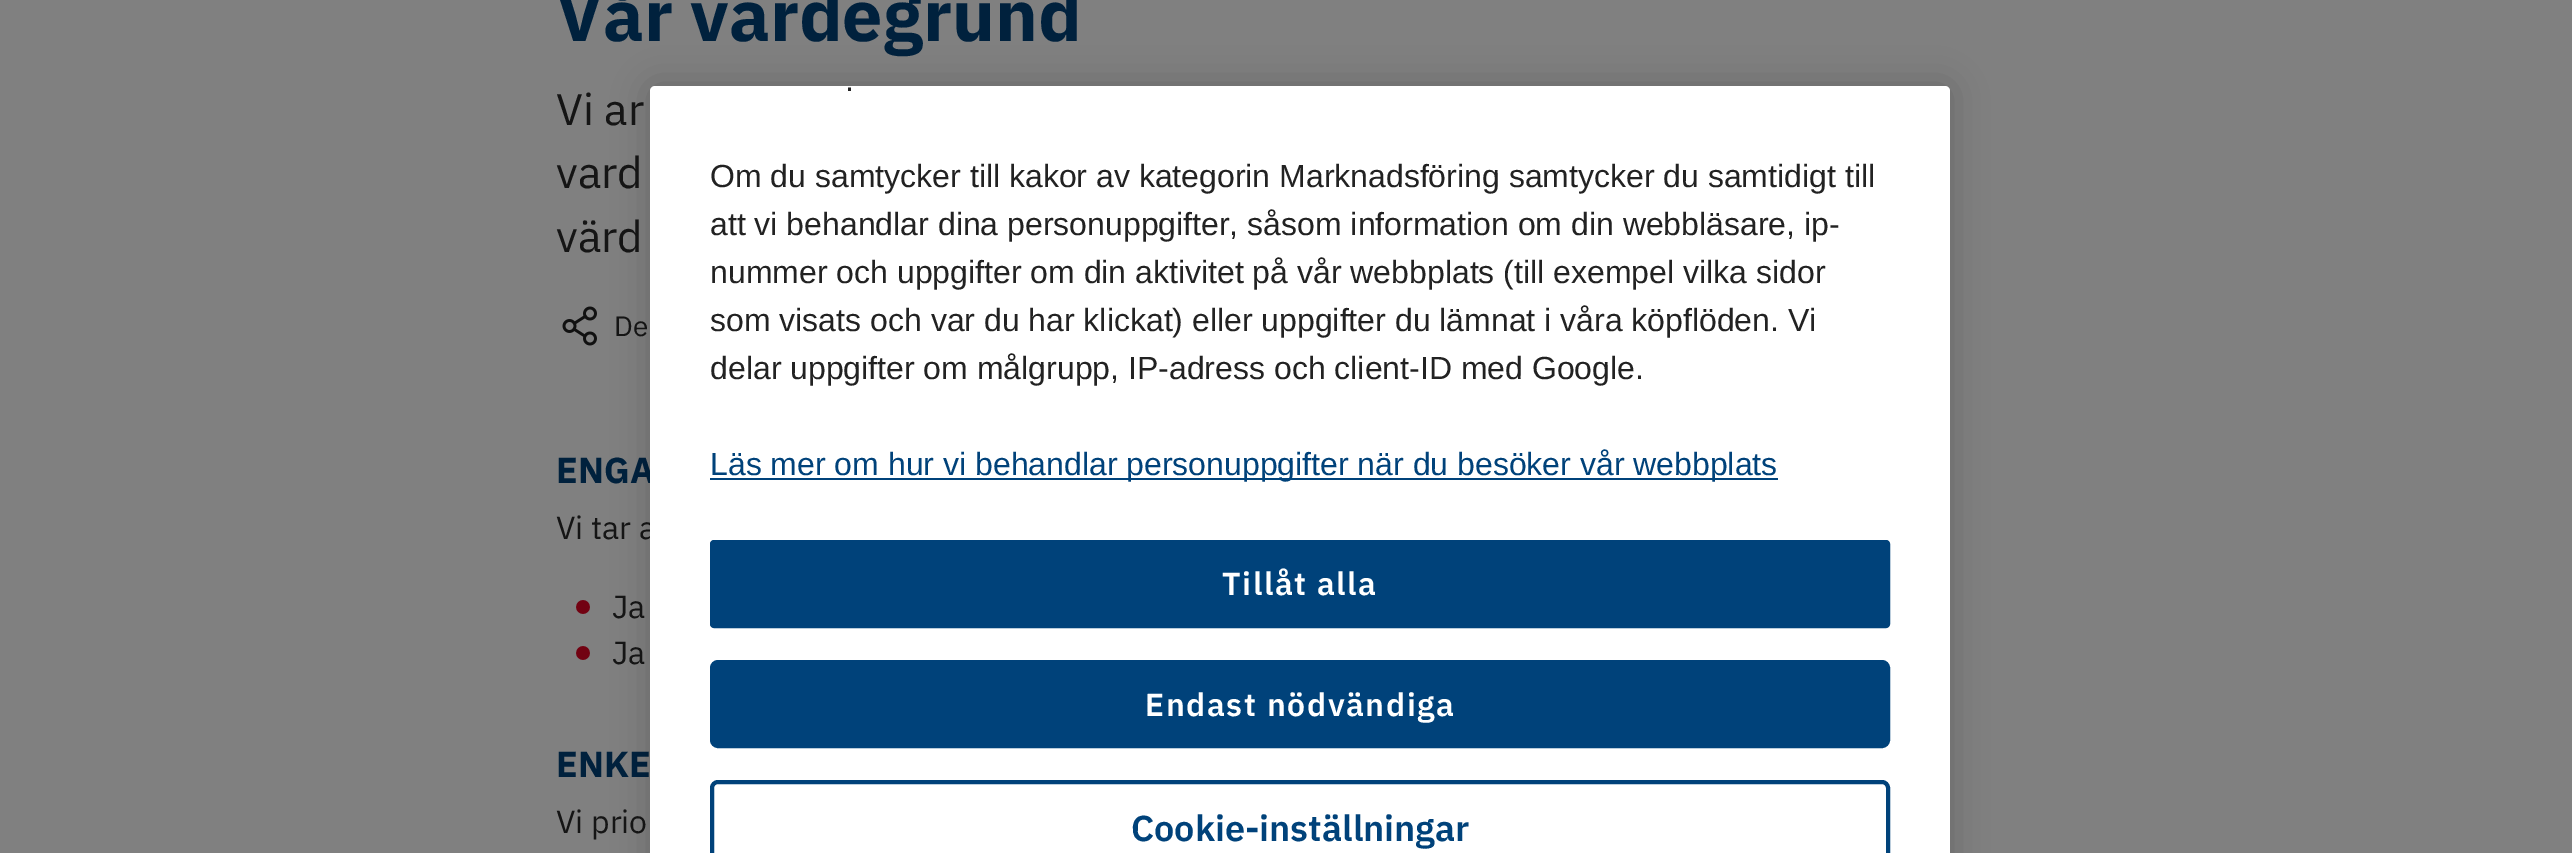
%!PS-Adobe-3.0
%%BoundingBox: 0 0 2572 853
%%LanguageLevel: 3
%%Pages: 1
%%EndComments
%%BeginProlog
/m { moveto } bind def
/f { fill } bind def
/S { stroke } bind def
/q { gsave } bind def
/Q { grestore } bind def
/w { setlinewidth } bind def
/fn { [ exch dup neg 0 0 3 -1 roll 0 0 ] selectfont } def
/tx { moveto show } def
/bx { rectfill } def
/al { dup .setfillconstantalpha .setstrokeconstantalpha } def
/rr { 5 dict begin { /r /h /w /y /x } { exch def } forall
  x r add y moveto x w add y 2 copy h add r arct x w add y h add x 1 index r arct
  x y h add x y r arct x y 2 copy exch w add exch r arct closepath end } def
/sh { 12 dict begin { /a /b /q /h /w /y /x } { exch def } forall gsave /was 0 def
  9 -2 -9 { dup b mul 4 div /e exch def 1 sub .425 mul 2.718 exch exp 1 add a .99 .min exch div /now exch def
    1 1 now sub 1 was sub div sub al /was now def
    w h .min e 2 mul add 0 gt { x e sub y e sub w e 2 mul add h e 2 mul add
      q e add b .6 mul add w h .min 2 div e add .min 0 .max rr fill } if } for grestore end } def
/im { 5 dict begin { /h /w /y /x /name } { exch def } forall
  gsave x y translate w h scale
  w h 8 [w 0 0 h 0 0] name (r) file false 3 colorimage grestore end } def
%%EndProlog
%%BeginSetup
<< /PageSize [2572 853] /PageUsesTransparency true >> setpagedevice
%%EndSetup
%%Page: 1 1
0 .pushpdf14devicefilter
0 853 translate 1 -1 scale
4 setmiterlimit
0.502 setgray
0 0 2572 853 bx
/IBMPlexSans-Bold 72 fn
0 0.129 0.239 setrgbcolor
(Vår värdegrund) 556 41 tx
/IBMPlexSans-Regular 44 fn
0.082 setgray
(Vi ar) 556 125 tx
(vard) 556 188 tx
(värd) 556 252 tx
(image0.raw) 562 306 35 40 im
/IBMPlexSans-Regular 28 fn
(De) 614 336 tx
/IBMPlexSans-Bold 36 fn
0 0.129 0.239 setrgbcolor
(ENGA) 556 483 tx
/IBMPlexSans-Regular 32 fn
0.082 setgray
(Vi tar a) 556 539 tx
(image1.raw) 576 600 14 14 im
(Ja) 612 618 tx
(image1.raw) 576 646 14 14 im
(Ja) 612 664 tx
/IBMPlexSans-Bold 36 fn
0 0.129 0.239 setrgbcolor
(ENKE) 556 777 tx
/IBMPlexSans-Regular 32 fn
0.082 setgray
(Vi prio) 556 833 tx
0 setgray
650 86 1300 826 5 18 0.2 sh
1 setgray
650 86 1300 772 5 rr f
/LiberationSans-Regular 32 fn
0.133 setgray
(.) 845 91 tx
(Om du samtycker till kakor av kategorin Marknadsföring samtycker du samtidigt till) 710 187 tx
(att vi behandlar dina personuppgifter, såsom information om din webbläsare, ip-) 710 235 tx
(nummer och uppgifter om din aktivitet på vår webbplats \(till exempel vilka sidor) 710 283 tx
(som visats och var du har klickat\) eller uppgifter du lämnat i våra köpflöden. Vi) 710 331 tx
(delar uppgifter om målgrupp, IP-adress och client-ID med Google.) 710 379 tx
0 0.259 0.478 setrgbcolor
710 478 1068 2 bx
(Läs mer om hur vi behandlar personuppgifter när du besöker vår webbplats) 710 475 tx
711 541 1178 86 3 rr q f Q
2 w
S
/IBMPlexSans-SemiBold 32 fn
1 setgray
1222 595 m 1.6 0 (Tillåt alla) ashow
0 0.259 0.478 setrgbcolor
711 661 1178 86 7 rr q f Q
S
1 setgray
1145 716 m 1.6 0 (Endast nödvändiga) ashow
0 0.259 0.478 setrgbcolor
4 w
712 782 1176 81 6 rr S
/IBMPlexSans-SemiBold 36 fn
(Cookie-inställningar) 1131 841 tx
.poppdf14devicefilter showpage
%%EOF
